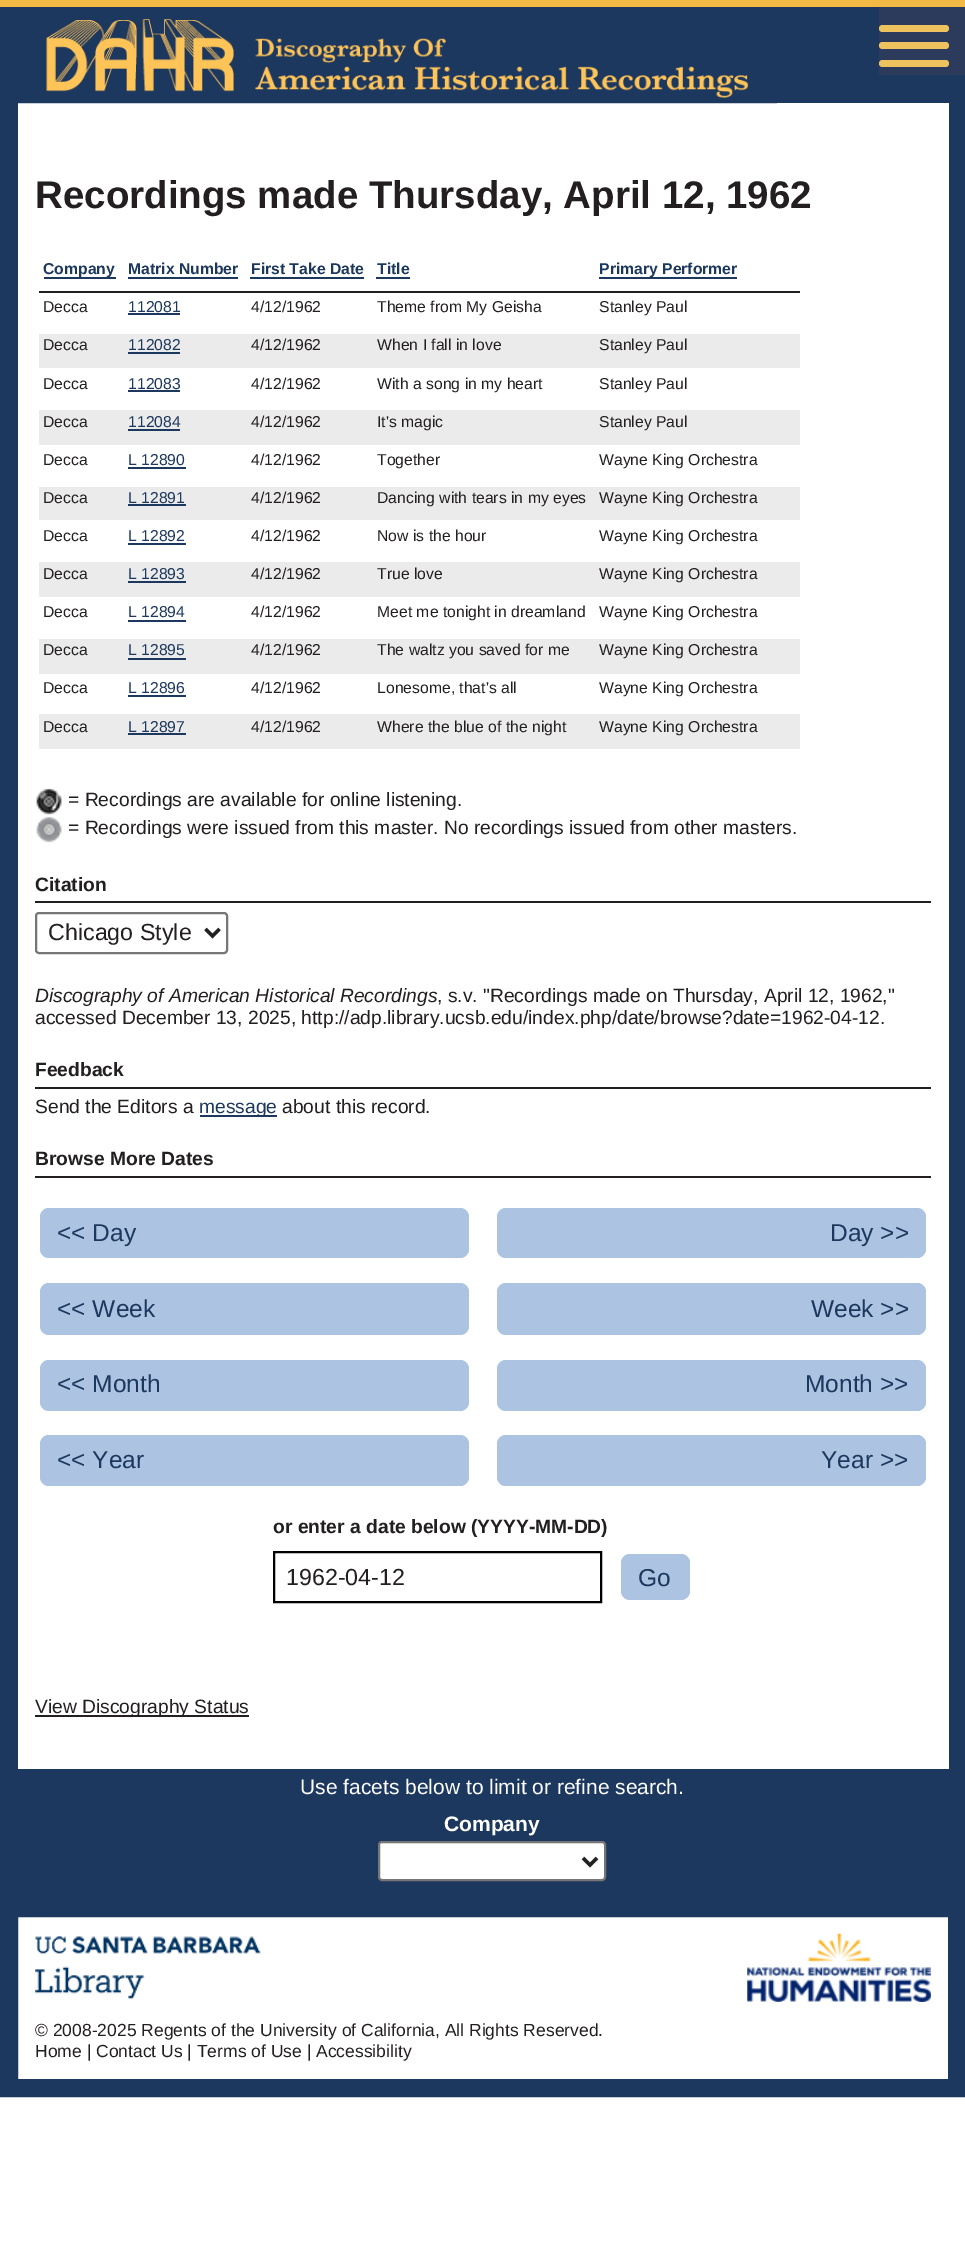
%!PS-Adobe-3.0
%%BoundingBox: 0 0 965 2262
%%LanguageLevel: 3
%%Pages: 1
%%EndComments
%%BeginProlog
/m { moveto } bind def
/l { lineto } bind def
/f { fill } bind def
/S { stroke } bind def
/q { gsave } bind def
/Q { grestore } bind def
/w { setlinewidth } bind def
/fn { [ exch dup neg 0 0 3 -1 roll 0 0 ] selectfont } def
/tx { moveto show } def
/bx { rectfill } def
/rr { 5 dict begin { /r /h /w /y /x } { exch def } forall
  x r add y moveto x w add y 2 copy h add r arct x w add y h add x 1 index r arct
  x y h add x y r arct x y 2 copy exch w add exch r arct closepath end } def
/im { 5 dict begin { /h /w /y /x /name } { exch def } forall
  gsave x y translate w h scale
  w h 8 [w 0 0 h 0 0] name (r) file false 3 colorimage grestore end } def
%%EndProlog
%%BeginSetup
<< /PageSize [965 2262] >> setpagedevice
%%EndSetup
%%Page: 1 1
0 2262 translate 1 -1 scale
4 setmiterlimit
1 setgray
0 0 965 2262 bx
0.114 0.22 0.369 setrgbcolor
0 7 965 1892 bx
0.953 0.725 0.271 setrgbcolor
0 0 965 7 bx
1 setgray
18 103 931 1666 bx
(image0.raw) 18 19 759 85 im
0.173 0.231 0.361 setrgbcolor
879 7 86 68 bx
0.933 0.765 0.365 setrgbcolor
879 42 70 7 3.5 rr f
879 25 70 7 3.5 rr f
879 60 70 7 3.5 rr f
/LiberationSans-Bold 38.5 fn
0.137 0.122 0.125 setrgbcolor
(Recordings made Thursday, April 12, 1962) 35 208 tx
39 291 761 2 bx
0.114 0.22 0.369 setrgbcolor
44 277 72 2 bx
/LiberationSans-Bold 15.75 fn
(Company) 43 274 tx
(Matrix Number) 128 274 tx
128 277 110 2 bx
(First Take Date) 251 274 tx
250 277 114 2 bx
(Title) 377 274 tx
376 277 34 2 bx
599 277 138 2 bx
(Primary Performer) 599 274 tx
/LiberationSans-Regular 15.75 fn
0.137 0.122 0.125 setrgbcolor
(Decca) 43 312 tx
0.114 0.22 0.369 setrgbcolor
(112081) 128 312 tx
128 313 52 2 bx
0.137 0.122 0.125 setrgbcolor
(4/12/1962) 251 312 tx
(Theme from My Geisha) 377 312 tx
(Stanley Paul) 599 312 tx
0.922 setgray
39 334 761 34 bx
0.137 0.122 0.125 setrgbcolor
(Decca) 43 350 tx
0.114 0.22 0.369 setrgbcolor
(112082) 128 350 tx
128 352 52 2 bx
0.137 0.122 0.125 setrgbcolor
(4/12/1962) 251 350 tx
(When I fall in love) 377 350 tx
(Stanley Paul) 599 350 tx
(Decca) 43 389 tx
0.114 0.22 0.369 setrgbcolor
(112083) 128 389 tx
128 390 52 2 bx
0.137 0.122 0.125 setrgbcolor
(4/12/1962) 251 389 tx
(With a song in my heart) 377 389 tx
(Stanley Paul) 599 389 tx
0.922 setgray
39 410 761 35 bx
0.137 0.122 0.125 setrgbcolor
(Decca) 43 427 tx
0.114 0.22 0.369 setrgbcolor
(112084) 128 427 tx
128 429 52 2 bx
0.137 0.122 0.125 setrgbcolor
(4/12/1962) 251 427 tx
(It's magic) 377 427 tx
(Stanley Paul) 599 427 tx
(Decca) 43 465 tx
0.114 0.22 0.369 setrgbcolor
(L 12890) 128 465 tx
128 467 58 2 bx
0.137 0.122 0.125 setrgbcolor
(4/12/1962) 251 465 tx
(Together) 377 465 tx
(Wayne King Orchestra) 599 465 tx
0.922 setgray
39 487 761 33 bx
0.137 0.122 0.125 setrgbcolor
(Decca) 43 503 tx
0.114 0.22 0.369 setrgbcolor
(L 12891) 128 503 tx
128 504 58 2 bx
0.137 0.122 0.125 setrgbcolor
(4/12/1962) 251 503 tx
(Dancing with tears in my eyes) 377 503 tx
(Wayne King Orchestra) 599 503 tx
(Decca) 43 541 tx
0.114 0.22 0.369 setrgbcolor
(L 12892) 128 541 tx
128 543 58 2 bx
0.137 0.122 0.125 setrgbcolor
(4/12/1962) 251 541 tx
(Now is the hour) 377 541 tx
(Wayne King Orchestra) 599 541 tx
0.922 setgray
39 562 761 35 bx
0.137 0.122 0.125 setrgbcolor
(Decca) 43 579 tx
0.114 0.22 0.369 setrgbcolor
(L 12893) 128 579 tx
128 581 58 2 bx
0.137 0.122 0.125 setrgbcolor
(4/12/1962) 251 579 tx
(True love) 377 579 tx
(Wayne King Orchestra) 599 579 tx
(Decca) 43 617 tx
0.114 0.22 0.369 setrgbcolor
(L 12894) 128 617 tx
128 620 58 2 bx
0.137 0.122 0.125 setrgbcolor
(4/12/1962) 251 617 tx
(Meet me tonight in dreamland) 377 617 tx
(Wayne King Orchestra) 599 617 tx
0.922 setgray
39 639 761 35 bx
0.137 0.122 0.125 setrgbcolor
(Decca) 43 655 tx
0.114 0.22 0.369 setrgbcolor
(L 12895) 128 655 tx
128 658 58 2 bx
0.137 0.122 0.125 setrgbcolor
(4/12/1962) 251 655 tx
(The waltz you saved for me) 377 655 tx
(Wayne King Orchestra) 599 655 tx
(Decca) 43 693 tx
0.114 0.22 0.369 setrgbcolor
(L 12896) 128 693 tx
128 695 58 2 bx
0.137 0.122 0.125 setrgbcolor
(4/12/1962) 251 693 tx
(Lonesome, that's all) 377 693 tx
(Wayne King Orchestra) 599 693 tx
0.922 setgray
39 714 761 35 bx
0.137 0.122 0.125 setrgbcolor
(Decca) 43 732 tx
0.114 0.22 0.369 setrgbcolor
(L 12897) 128 732 tx
128 733 58 2 bx
0.137 0.122 0.125 setrgbcolor
(4/12/1962) 251 732 tx
(Where the blue of the night) 377 732 tx
(Wayne King Orchestra) 599 732 tx
(image1.raw) 36 788 26 27 im
/LiberationSans-Regular 19.25 fn
(= Recordings are available for online listening.) 68 806 tx
(image2.raw) 36 816 26 27 im
(= Recordings were issued from this master. No recordings issued from other masters.) 68 834 tx
35 901 896 2 bx
/LiberationSans-Bold 19.25 fn
(Citation) 35 891 tx
0.463 setgray
2 w
36 913 191 40 3 rr S
0.133 setgray
3.5 w
205.5 929 m 212.5 936 l 219.5 929 l S
/LiberationSans-Regular 23.25 fn
0.137 0.122 0.125 setrgbcolor
(Chicago Style) 48 940 tx
/LiberationSans-Italic 19.25 fn
(Discography of American Historical Recordings) 35 1002 tx
/LiberationSans-Regular 19.25 fn
(, s.v. "Recordings made on Thursday, April 12, 1962,") 437 1002 tx
(accessed December 13, 2025, http://adp.library.ucsb.edu/index.php/date/browse?date=1962-04-12.) 35 1024 tx
35 1087 896 2 bx
/LiberationSans-Bold 19.25 fn
(Feedback) 35 1076 tx
/LiberationSans-Regular 19.25 fn
(Send the Editors a) 35 1113 tx
0.114 0.22 0.369 setrgbcolor
200 1115 77 2 bx
(message) 199 1113 tx
0.137 0.122 0.125 setrgbcolor
(about this record.) 282 1113 tx
35 1176 896 2 bx
/LiberationSans-Bold 19.25 fn
(Browse More Dates) 35 1165 tx
0.675 0.765 0.882 setrgbcolor
40 1208 429 50 9 rr f
/LiberationSans-Regular 24.5 fn
0.114 0.22 0.369 setrgbcolor
(<< Day) 57 1241 tx
0.675 0.765 0.882 setrgbcolor
40 1283 429 52 9 rr f
0.114 0.22 0.369 setrgbcolor
(<< Week) 57 1317 tx
0.675 0.765 0.882 setrgbcolor
40 1360 429 51 9 rr f
0.114 0.22 0.369 setrgbcolor
(<< Month) 57 1392 tx
0.675 0.765 0.882 setrgbcolor
40 1435 429 51 9 rr f
0.114 0.22 0.369 setrgbcolor
(<< Year) 57 1468 tx
0.675 0.765 0.882 setrgbcolor
497 1208 429 50 9 rr f
0.114 0.22 0.369 setrgbcolor
(Day >>) 830 1241 tx
0.675 0.765 0.882 setrgbcolor
497 1283 429 52 9 rr f
0.114 0.22 0.369 setrgbcolor
(Week >>) 811 1317 tx
0.675 0.765 0.882 setrgbcolor
497 1360 429 51 9 rr f
0.114 0.22 0.369 setrgbcolor
(Month >>) 805 1392 tx
0.675 0.765 0.882 setrgbcolor
497 1435 429 51 9 rr f
0.114 0.22 0.369 setrgbcolor
(Year >>) 821 1468 tx
/LiberationSans-Bold 19.25 fn
0.137 0.122 0.125 setrgbcolor
(or enter a date below \(YYYY-MM-DD\)) 273 1533 tx
0 setgray
2 w
274 1552 327 50 rectstroke
/LiberationSans-Regular 23.25 fn
0.137 0.122 0.125 setrgbcolor
(1962-04-12) 286 1585 tx
0.675 0.765 0.882 setrgbcolor
621 1554 69 46 9 rr f
/LiberationSans-Regular 24.5 fn
0.114 0.22 0.369 setrgbcolor
(Go) 638 1586 tx
0.137 0.122 0.125 setrgbcolor
35 1715 214 2 bx
/LiberationSans-Regular 19.25 fn
(View Discography Status) 35 1713 tx
/LiberationSans-Regular 21 fn
1 setgray
(Use facets below to limit or refine search.) 300 1794 tx
/LiberationSans-Bold 21 fn
(Company) 444 1831 tx
379 1842 226 38 3 rr q f Q
0.463 setgray
S
0.133 setgray
3.5 w
583 1858 m 590 1865 l 597 1858 l S
0.114 0.22 0.369 setrgbcolor
18 w
9 1908 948 180 rectstroke
(image3.raw) 35 1936 226 63 im
(image4.raw) 747 1933 184 69 im
/LiberationSans-Regular 17.5 fn
0.137 0.122 0.125 setrgbcolor
(© 2008-2025 Regents of the University of California, All Rights Reserved.) 35 2036 tx
(Home | Contact Us | Terms of Use | Accessibility) 35 2057 tx
showpage
%%EOF
